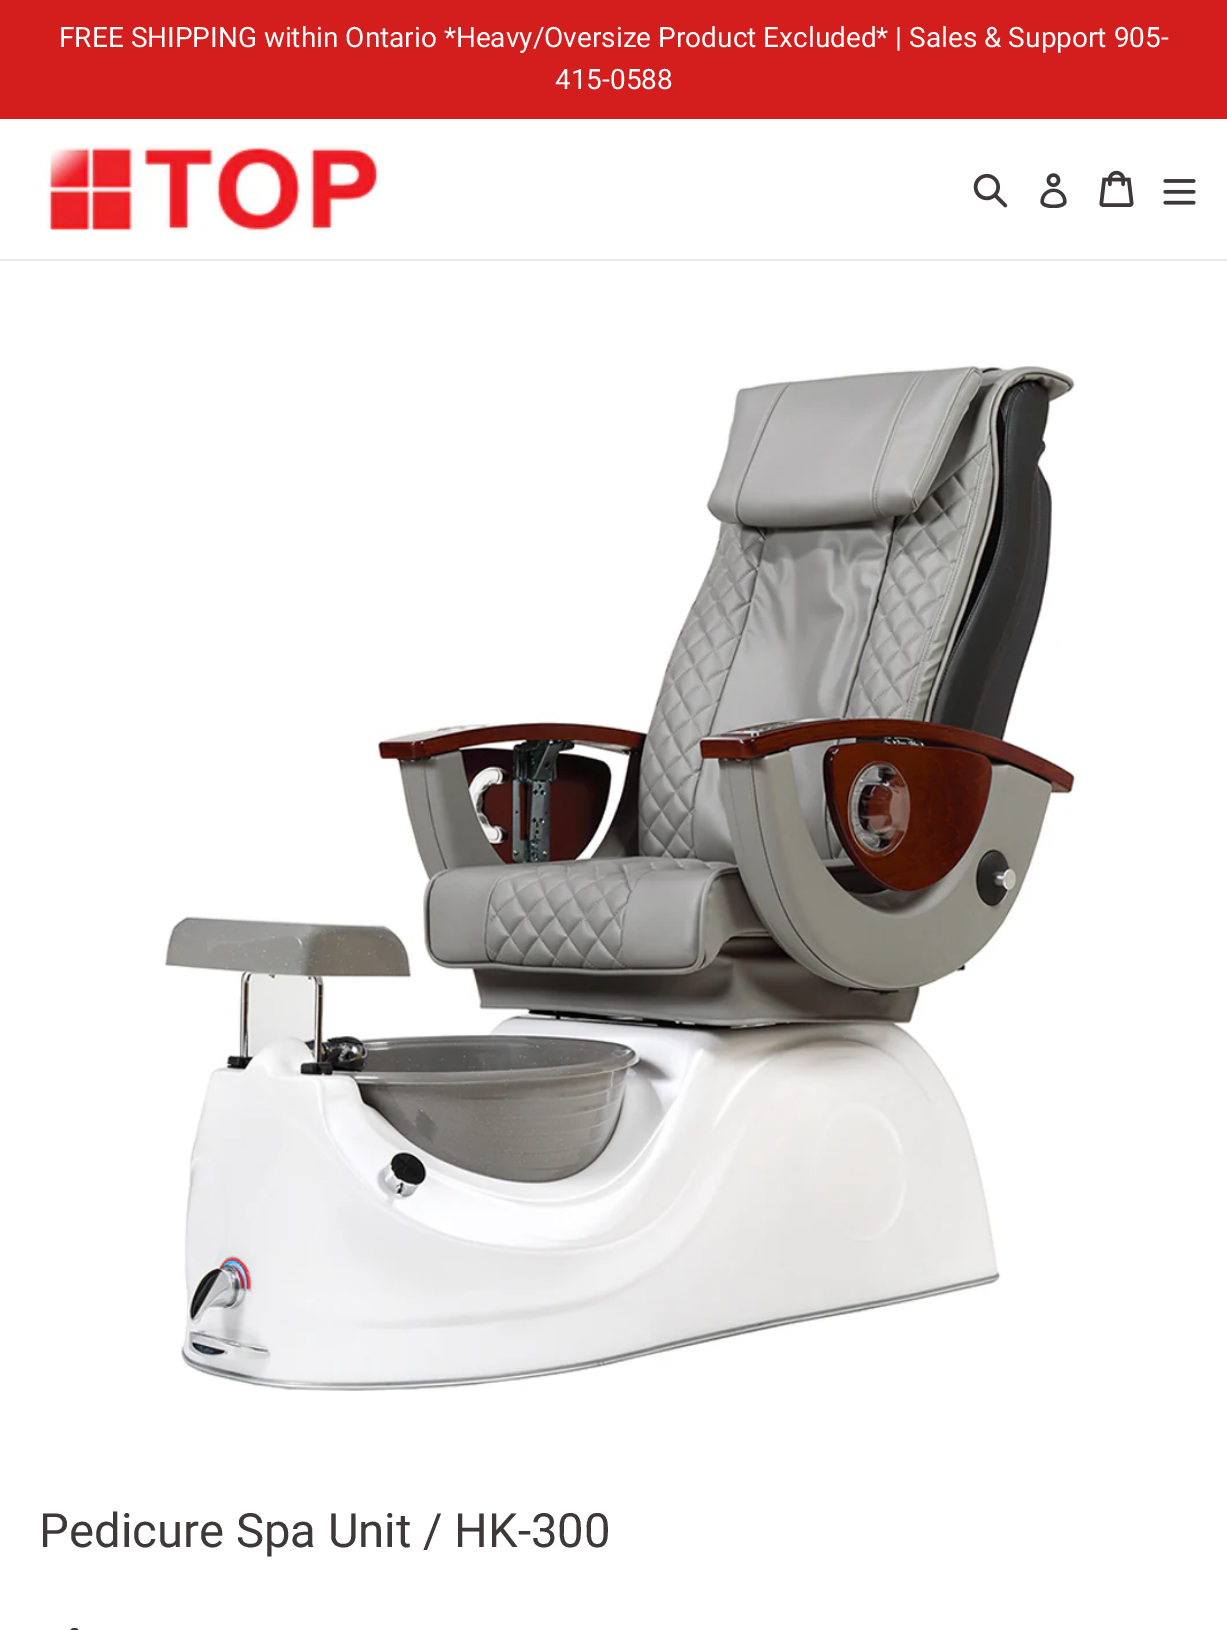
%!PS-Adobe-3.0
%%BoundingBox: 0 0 1227 1630
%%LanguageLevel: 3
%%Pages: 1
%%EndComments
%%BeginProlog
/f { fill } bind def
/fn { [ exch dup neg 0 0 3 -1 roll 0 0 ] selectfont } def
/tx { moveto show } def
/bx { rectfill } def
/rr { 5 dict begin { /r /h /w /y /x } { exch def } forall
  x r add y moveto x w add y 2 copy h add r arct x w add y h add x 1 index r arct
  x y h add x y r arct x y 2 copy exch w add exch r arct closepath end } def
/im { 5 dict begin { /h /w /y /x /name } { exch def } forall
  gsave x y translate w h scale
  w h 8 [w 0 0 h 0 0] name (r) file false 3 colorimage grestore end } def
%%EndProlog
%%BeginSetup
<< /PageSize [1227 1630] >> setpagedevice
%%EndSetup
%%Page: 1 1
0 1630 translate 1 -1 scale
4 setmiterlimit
1 setgray
0 0 1227 1630 bx
0.831 0.114 0.114 setrgbcolor
0 0 1227 119 bx
/Roboto-Regular 28 fn
1 setgray
(FREE SHIPPING within Ontario *Heavy/Oversize Product Excluded* | Sales & Support 905-) 59 47 tx
(415-0588) 555 89 tx
0.91 0.914 0.922 setrgbcolor
0 259 1227 2 bx
(image0.raw) 39 145 346 88 im
(image1.raw) 973 173 35 35 im
(image2.raw) 1040 173 27 35 im
(image3.raw) 1099 170 35 37 im
(image4.raw) 1163 179 33 26 im
(image5.raw) 163 364 913 1027 im
/Roboto-Regular 47.25 fn
0.243 0.22 0.22 setrgbcolor
(Pedicure Spa Unit / HK-300) 39 1547 tx
0.239 0.231 0.231 setrgbcolor
70 1628 9 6 4 rr f
showpage
%%EOF
